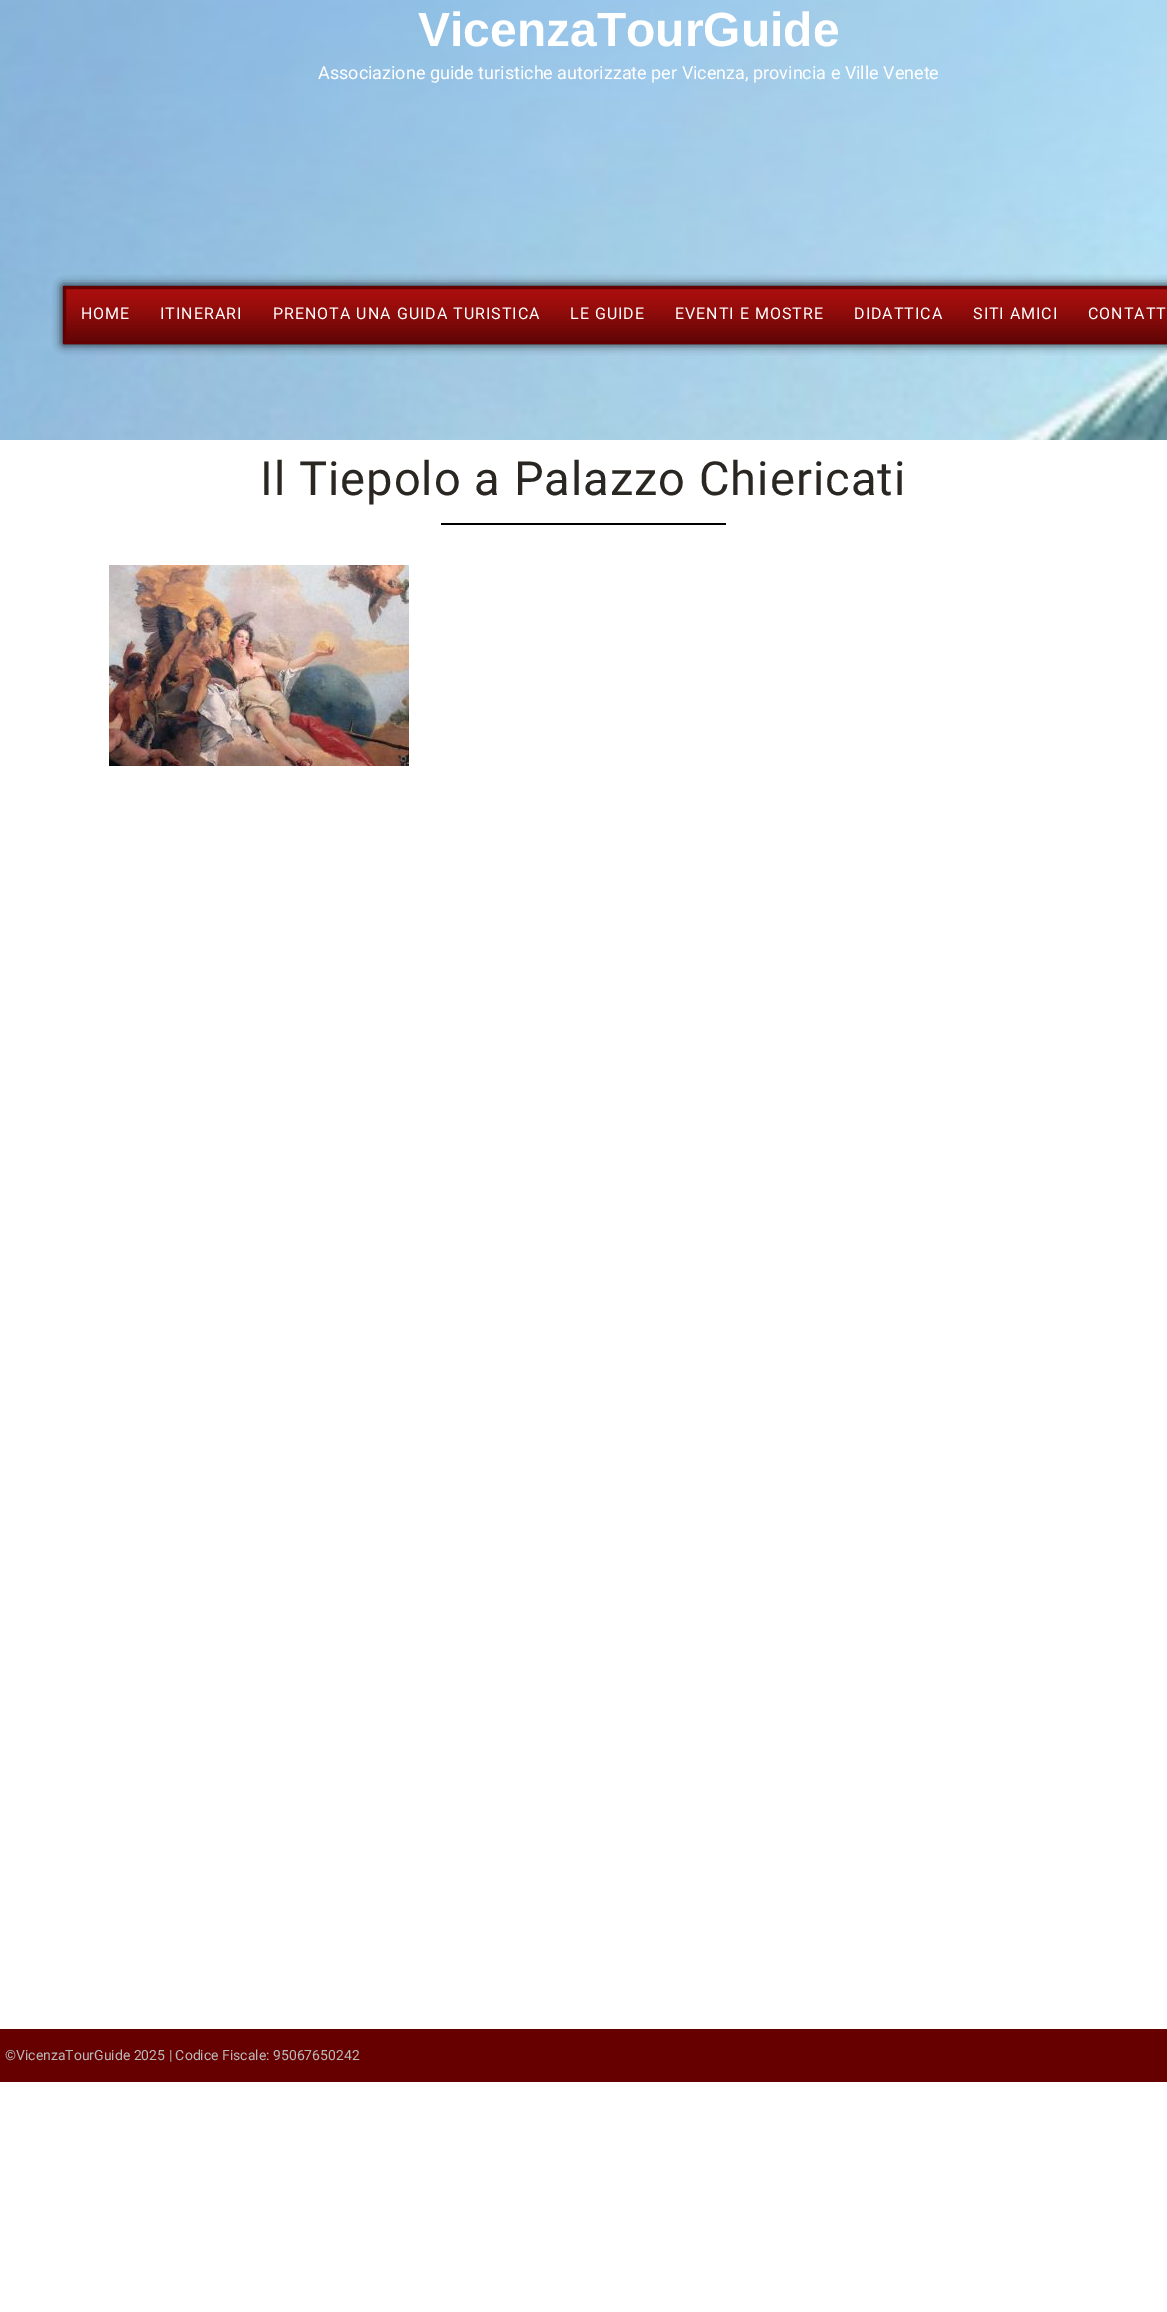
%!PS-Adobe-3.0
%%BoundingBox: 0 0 1167 2312
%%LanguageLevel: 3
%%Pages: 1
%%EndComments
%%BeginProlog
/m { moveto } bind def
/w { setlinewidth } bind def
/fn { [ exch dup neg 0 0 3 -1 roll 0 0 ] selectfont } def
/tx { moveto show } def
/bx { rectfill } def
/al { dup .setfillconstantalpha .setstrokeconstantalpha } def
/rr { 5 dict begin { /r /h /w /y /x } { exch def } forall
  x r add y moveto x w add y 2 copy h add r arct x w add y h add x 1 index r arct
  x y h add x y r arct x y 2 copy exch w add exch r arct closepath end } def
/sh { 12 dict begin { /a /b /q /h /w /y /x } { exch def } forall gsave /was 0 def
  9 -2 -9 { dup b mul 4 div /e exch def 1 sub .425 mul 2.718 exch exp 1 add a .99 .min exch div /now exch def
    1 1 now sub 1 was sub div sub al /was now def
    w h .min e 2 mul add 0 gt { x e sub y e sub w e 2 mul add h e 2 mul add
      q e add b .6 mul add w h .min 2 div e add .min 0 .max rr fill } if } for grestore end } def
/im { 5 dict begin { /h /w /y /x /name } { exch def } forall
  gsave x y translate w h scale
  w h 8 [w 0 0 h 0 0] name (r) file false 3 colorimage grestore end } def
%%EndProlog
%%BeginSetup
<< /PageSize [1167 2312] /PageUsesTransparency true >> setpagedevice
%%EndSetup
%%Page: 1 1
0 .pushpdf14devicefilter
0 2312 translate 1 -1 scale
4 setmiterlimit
1 setgray
0 0 1167 2312 bx
(image0.raw) 0 0 1167 440 im
/LiberationSans-Bold 48 fn
(VicenzaTourGuide) 418 46 tx
/Roboto-Regular 18 fn
(Associazione guide turistiche autorizzate per Vicenza, provincia e Ville Venete) 318 79 tx
0 setgray
63 286 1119 58 0 5 1 sh
(image1.raw) 66 289 1101 52 im
0.4 0 0 setrgbcolor
3 w
64.5 287.5 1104 55 rectstroke
/Roboto-Regular 16 fn
1 setgray
81 319 m 1 0 (HOME) ashow
160 319 m 1 0 (ITINERARI) ashow
273 319 m 1 0 (PRENOTA UNA GUIDA TURISTICA) ashow
570 319 m 1 0 (LE GUIDE) ashow
675 319 m 1 0 (EVENTI E MOSTRE) ashow
854 319 m 1 0 (DIDATTICA) ashow
973 319 m 1 0 (SITI AMICI) ashow
1088 319 m 1 0 (CONTATT) ashow
/Roboto-Regular 47 fn
0.165 0.149 0.133 setrgbcolor
260 495 m 1 0 (Il Tiepolo a Palazzo Chiericati) ashow
0 setgray
441 523 285 2 bx
(image2.raw) 109 565 300 201 im
0.4 0 0 setrgbcolor
0 2029 1167 53 bx
/Roboto-Regular 14 fn
0.725 setgray
(©VicenzaTourGuide 2025 | Codice Fiscale: 95067650242) 5 2060 tx
.poppdf14devicefilter showpage
%%EOF
